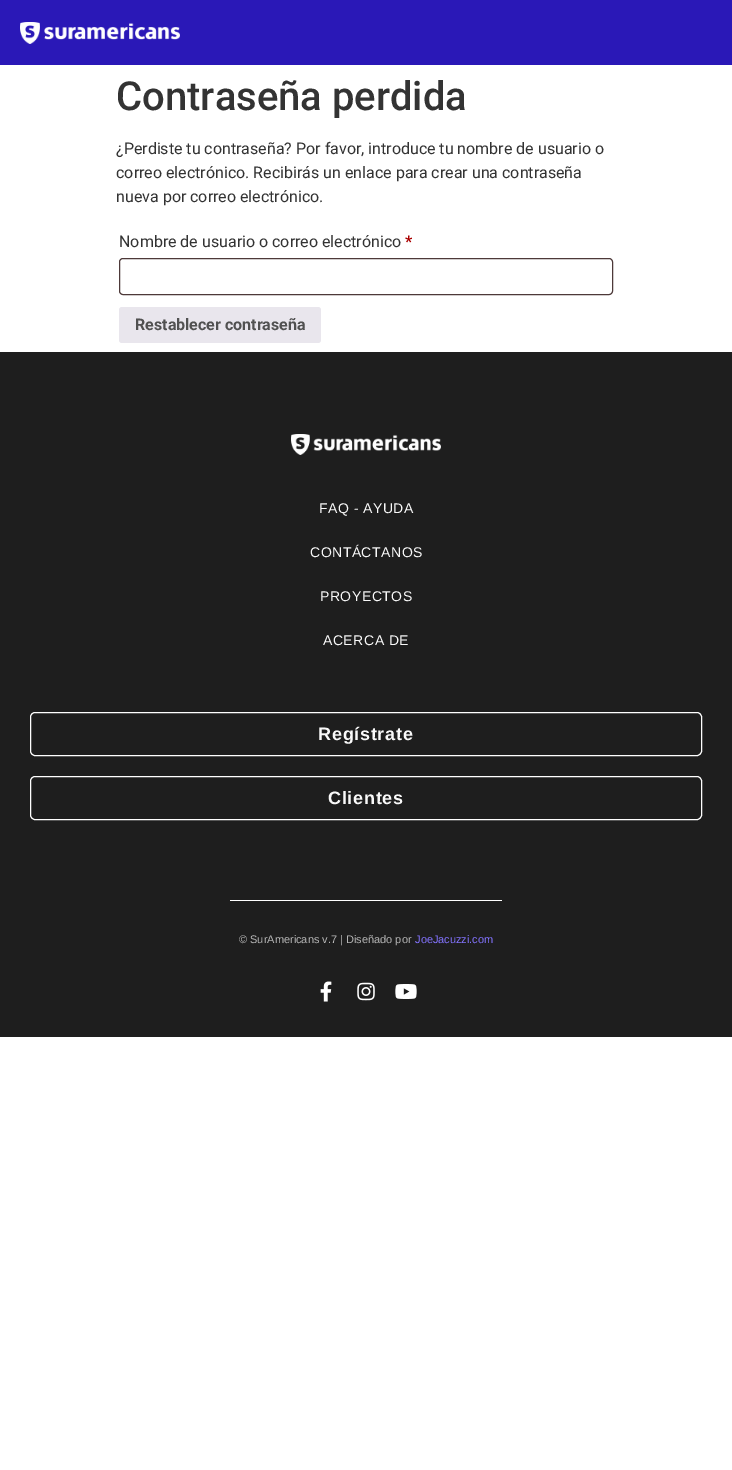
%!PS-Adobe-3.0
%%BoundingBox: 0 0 732 1470
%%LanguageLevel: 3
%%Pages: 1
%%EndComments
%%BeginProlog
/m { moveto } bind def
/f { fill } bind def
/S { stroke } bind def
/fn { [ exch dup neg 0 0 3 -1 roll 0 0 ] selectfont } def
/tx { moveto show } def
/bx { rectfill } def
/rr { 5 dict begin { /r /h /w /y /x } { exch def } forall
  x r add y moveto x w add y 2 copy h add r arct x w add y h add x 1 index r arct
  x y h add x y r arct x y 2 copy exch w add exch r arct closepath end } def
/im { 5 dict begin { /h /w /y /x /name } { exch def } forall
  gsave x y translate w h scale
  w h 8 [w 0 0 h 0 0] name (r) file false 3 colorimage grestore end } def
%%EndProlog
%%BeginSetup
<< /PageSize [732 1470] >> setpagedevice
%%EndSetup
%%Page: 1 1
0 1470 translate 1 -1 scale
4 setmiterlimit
1 setgray
0 0 732 1470 bx
0.165 0.094 0.718 setrgbcolor
0 0 732 65 bx
(image0.raw) 20 22 160 22 im
/Roboto-Medium 40 fn
0.2 setgray
(Contraseña perdida) 116 110 tx
/Roboto-Regular 16 fn
(¿Perdiste tu contraseña? Por favor, introduce tu nombre de usuario o) 116 154 tx
(correo electrónico. Recibirás un enlace para crear una contraseña) 116 178 tx
(nueva por correo electrónico.) 116 202 tx
(Nombre de usuario o correo electrónico) 119 247 tx
/Roboto-Bold 16 fn
0.667 0 0 setrgbcolor
(*) 405 247 tx
0.302 0.224 0.224 setrgbcolor
119.5 258.5 493 36 3.5 rr S
0.914 0.902 0.929 setrgbcolor
119 307 202 36 3 rr f
0.318 setgray
(Restablecer contraseña) 135 330 tx
0.118 setgray
0 352 732 685 bx
(image1.raw) 291 434 150 21 im
/LiberationSans-Regular 14 fn
0.976 setgray
319 513 m 0.5 0 (FAQ - AYUDA) ashow
310 557 m 0.5 0 (CONTÁCTANOS) ashow
320 601 m 0.5 0 (PROYECTOS) ashow
323 645 m 0.5 0 (ACERCA DE) ashow
1 setgray
30.5 712.5 671 43 4.5 rr S
/LiberationSans-Bold 18 fn
0.976 setgray
318 740 m 0.75 0 (Regístrate) ashow
1 setgray
30.5 776.5 671 43 4.5 rr S
0.976 setgray
328 804 m 0.75 0 (Clientes) ashow
1 setgray
230 900 272 1 bx
/LiberationSans-Regular 11 fn
0.714 setgray
(© SurAmericans v.7 | Diseñado por) 239 943 tx
0.514 0.451 1 setrgbcolor
(JoeJacuzzi.com) 415 943 tx
(image2.raw) 320 981 12 21 im
(image3.raw) 357 982 18 19 im
(image4.raw) 395 984 22 15 im
showpage
%%EOF
